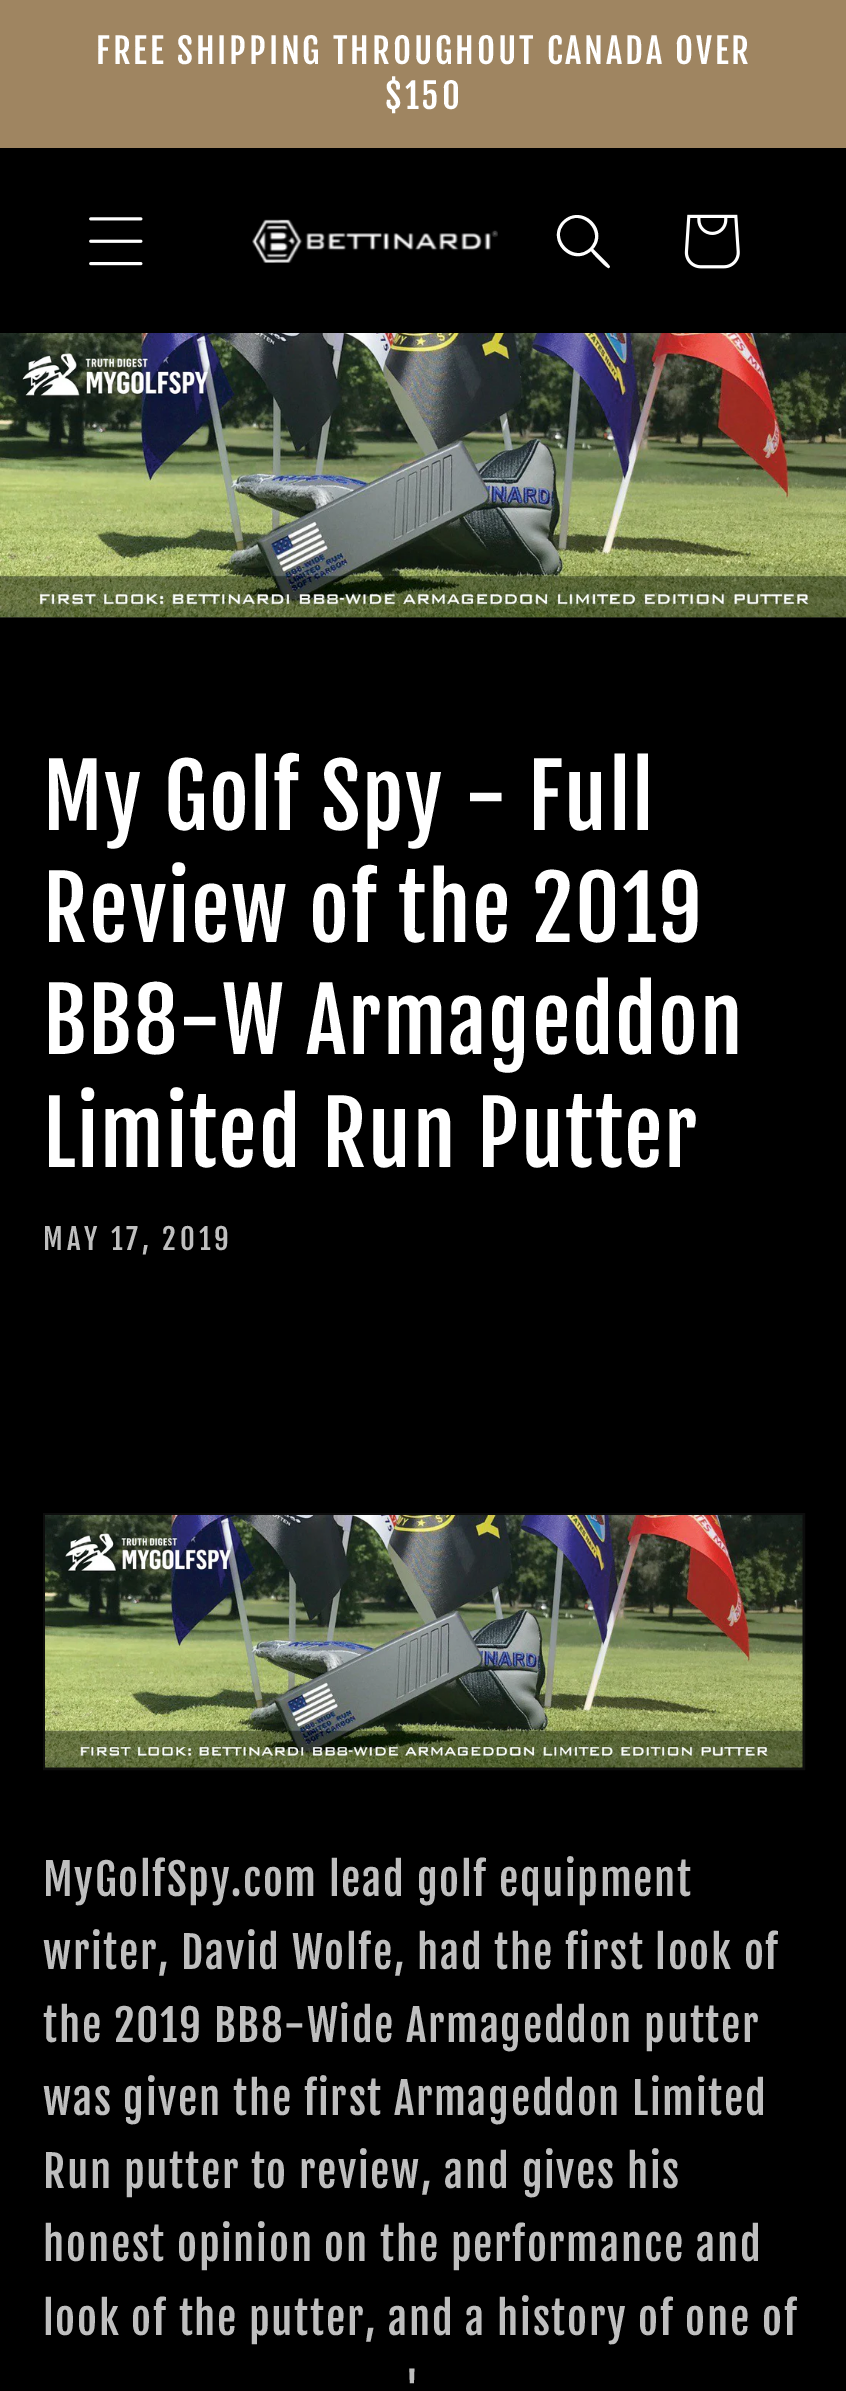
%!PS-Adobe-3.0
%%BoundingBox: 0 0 846 2391
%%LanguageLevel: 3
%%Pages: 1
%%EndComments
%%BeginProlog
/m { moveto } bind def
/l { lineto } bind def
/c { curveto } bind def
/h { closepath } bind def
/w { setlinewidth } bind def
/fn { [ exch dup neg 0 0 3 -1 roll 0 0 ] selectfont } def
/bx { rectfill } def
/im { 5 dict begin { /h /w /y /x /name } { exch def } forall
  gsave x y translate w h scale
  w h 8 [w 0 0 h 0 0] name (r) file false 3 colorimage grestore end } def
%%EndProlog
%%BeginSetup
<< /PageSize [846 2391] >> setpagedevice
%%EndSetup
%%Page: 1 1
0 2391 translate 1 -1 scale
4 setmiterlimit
0 setgray
0 0 846 2391 bx
0.624 0.522 0.38 setrgbcolor
0 0 846 148 bx
/FjallaOne-Regular 34.5 fn
1 setgray
96 64 m 2.9 0 (FREE SHIPPING THROUGHOUT CANADA OVER) ashow
385 109 m 2.9 0 ($150) ashow
(image0.raw) 89 217 54 49 im
(image1.raw) 252 219 246 44 im
590 248 m 574 264 549 239 565 223 c 581 207 606 232 590 248 c h 591 251 m 571 268 545 239 563 221 c 582 203 610 230 593 249 c 595 251 610 265 610 267 c 609 268 l 607 269 593 254 591 251 c h eofill
(image2.raw) 684 214 56 55 im
0.102 setgray
0 617 846 1 bx
(image3.raw) 0 333 846 285 im
/FjallaOne-Regular 86.25 fn
1 setgray
43 830 m 1.7 0 (My Golf Spy - Full) ashow
43 942 m 1.7 0 (Review of the 2019) ashow
43 1054 m 1.7 0 (BB8-W Armageddon) ashow
43 1167 m 1.7 0 (Limited Run Putter) ashow
/FjallaOne-Regular 28.75 fn
0.749 setgray
43 1250 m 3.75 0 (MAY 17, 2019) ashow
0.051 setgray
3 w
44.5 1514.5 759 254 rectstroke
(image4.raw) 45 1515 758 253 im
/FjallaOne-Regular 43.1 fn
0.749 setgray
43 1896 m 1.7 0 (MyGolfSpy.com lead golf equipment) ashow
43 1969 m 1.7 0 (writer, David Wolfe, had the first look of) ashow
43 2042 m 1.7 0 (the 2019 BB8-Wide Armageddon putter) ashow
43 2115 m 1.7 0 (was given the first Armageddon Limited) ashow
43 2188 m 1.7 0 (Run putter to review, and gives his) ashow
43 2261 m 1.7 0 (honest opinion on the performance and) ashow
43 2335 m 1.7 0 (look of the putter, and a history of one of) ashow
405 2408 m 1.7 0 (') ashow
showpage
%%EOF
